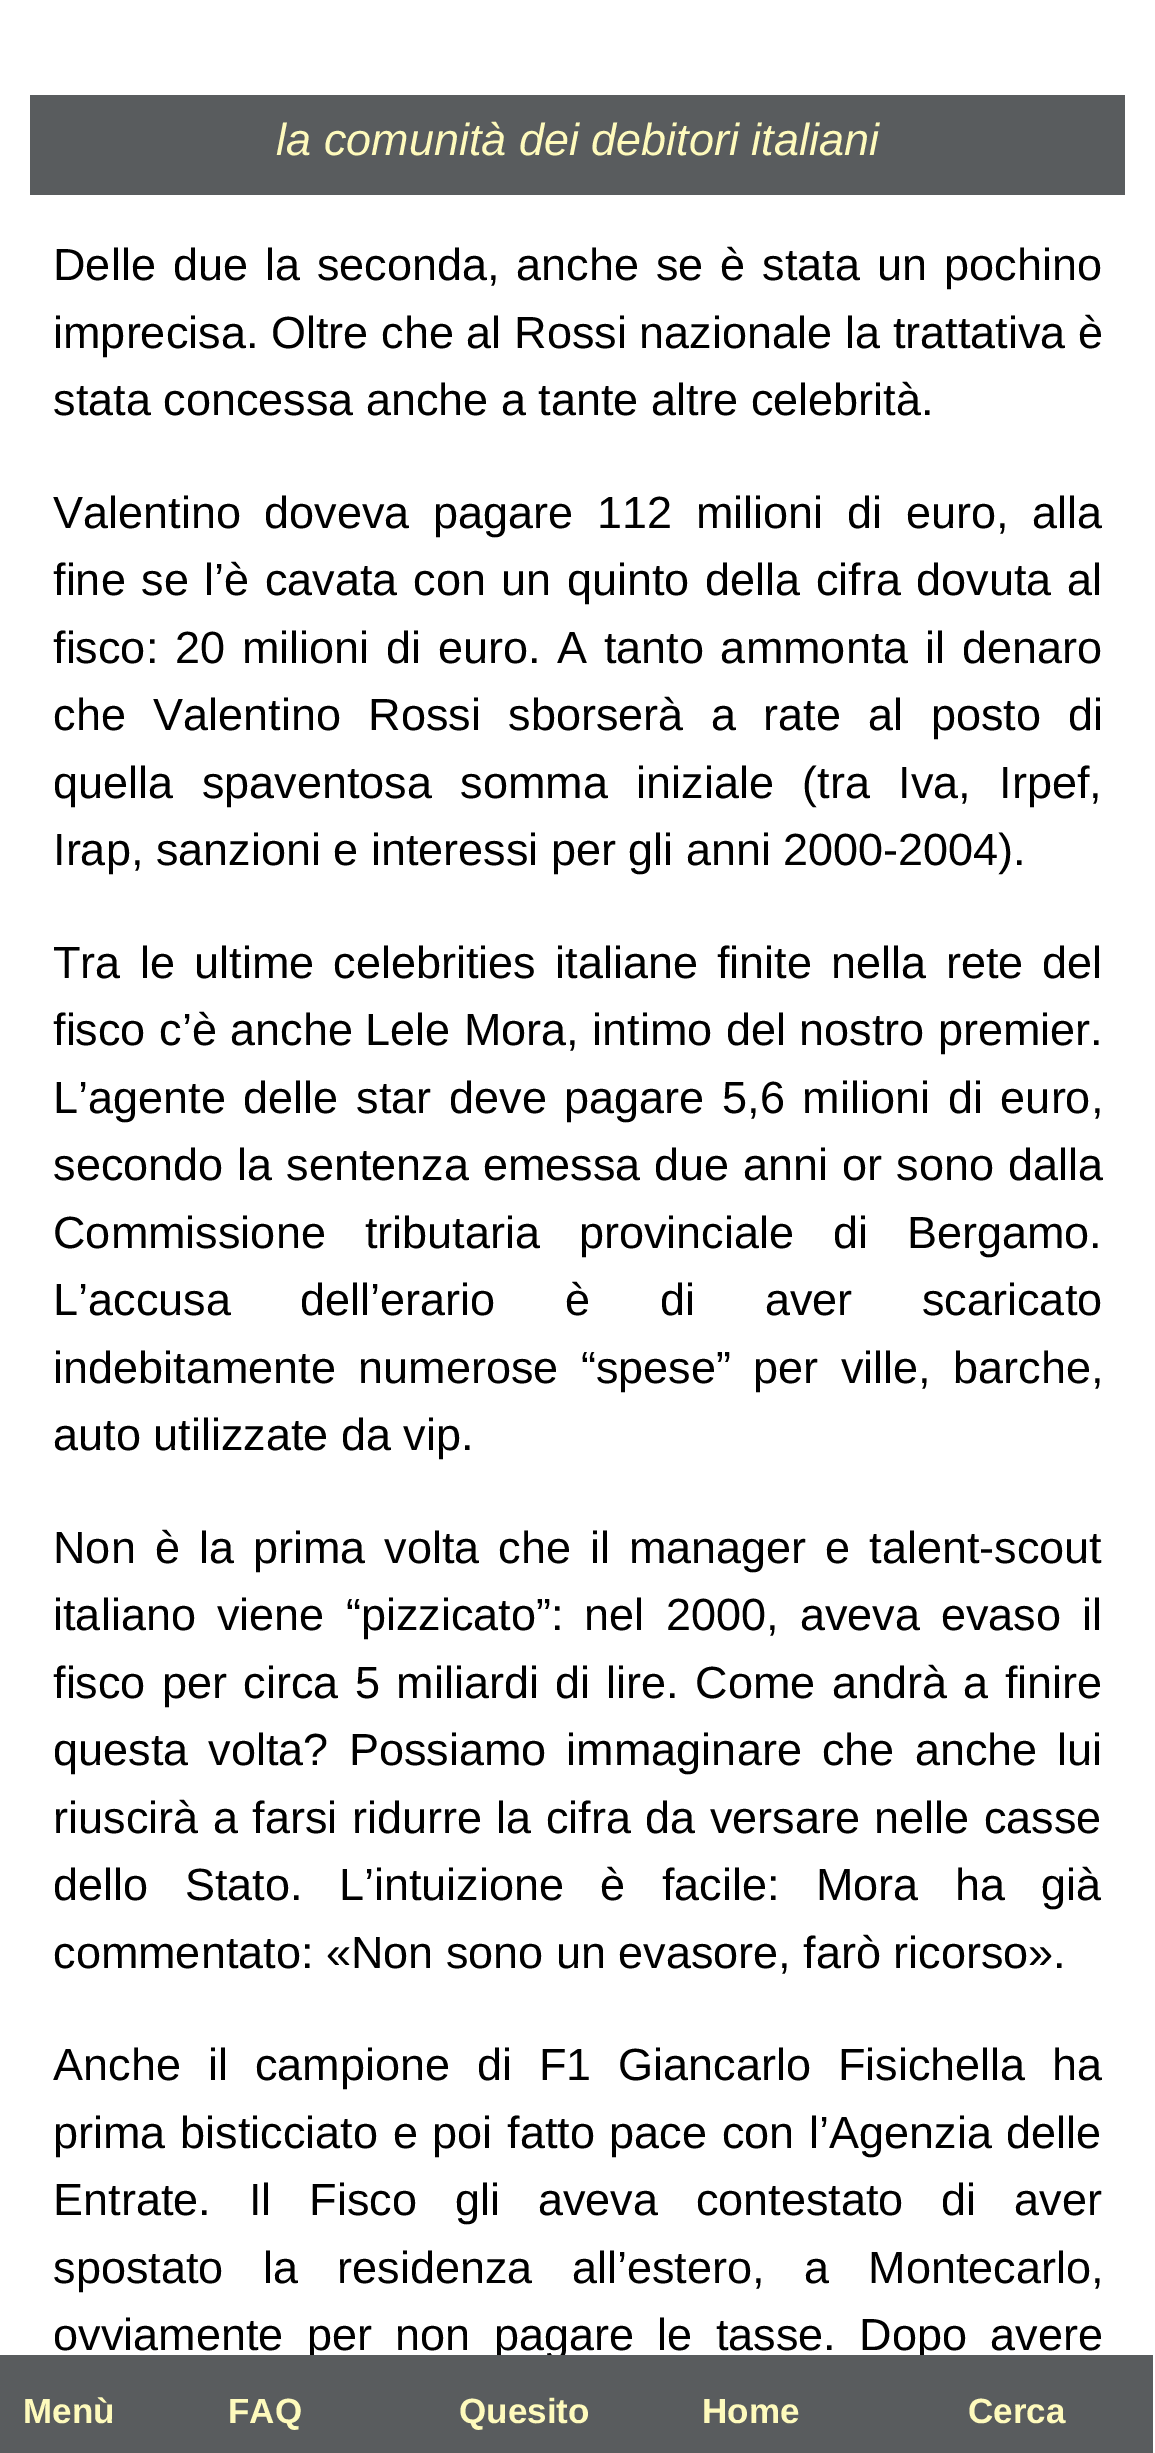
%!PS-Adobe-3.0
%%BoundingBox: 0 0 1155 2453
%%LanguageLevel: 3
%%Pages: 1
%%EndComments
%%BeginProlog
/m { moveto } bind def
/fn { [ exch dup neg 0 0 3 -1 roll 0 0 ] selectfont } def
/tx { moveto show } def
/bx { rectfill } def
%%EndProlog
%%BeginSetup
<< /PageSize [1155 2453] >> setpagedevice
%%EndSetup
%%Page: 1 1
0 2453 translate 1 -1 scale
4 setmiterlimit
1 setgray
0 0 1155 2453 bx
0.349 0.361 0.369 setrgbcolor
30 95 1095 100 bx
/LiberationSans-Italic 45 fn
0.996 0.98 0.737 setrgbcolor
(la comunità dei debitori italiani) 276 155 tx
/LiberationSans-Regular 45 fn
0 setgray
53 2350 m 11 0 32 (ovviamente per non pagare le tasse. Dopo avere) widthshow
0.349 0.361 0.369 setrgbcolor
0 2355 1153 98 bx
/LiberationSans-Bold 35 fn
0.996 0.98 0.737 setrgbcolor
(Menù) 23 2423 tx
(FAQ) 228 2423 tx
(Quesito) 459 2423 tx
(Home) 702 2423 tx
(Cerca) 968 2423 tx
/LiberationSans-Regular 45 fn
0 setgray
53 280 m 4.5 0 32 (Delle due la seconda, anche se è stata un pochino) widthshow
53 348 m 0.25 0 32 (imprecisa. Oltre che al Rossi nazionale la trattativa è) widthshow
(stata concessa anche a tante altre celebrità.) 53 415 tx
53 528 m 11.25 0 32 (Valentino doveva pagare 112 milioni di euro, alla) widthshow
53 595 m 3.1 0 32 (fine se l’è cavata con un quinto della cifra dovuta al) widthshow
53 663 m 4.25 0 32 (fisco: 20 milioni di euro. A tanto ammonta il denaro) widthshow
53 730 m 15 0 32 (che Valentino Rossi sborserà a rate al posto di) widthshow
53 798 m 16 0 32 (quella spaventosa somma iniziale \(tra Iva, Irpef,) widthshow
(Irap, sanzioni e interessi per gli anni 2000-2004\).) 53 865 tx
53 978 m 6.75 0 32 (Tra le ultime celebrities italiane finite nella rete del) widthshow
53 1045 m 1 0 32 (fisco c’è anche) widthshow
365 1045 m 1 0 32 (Lele Mora, intimo del nostro premier.) widthshow
53 1113 m 5.25 0 32 (L’agente delle star deve pagare 5,6 milioni di euro,) widthshow
53 1180 m 1.5 0 32 (secondo la sentenza emessa due anni or sono dalla) widthshow
53 1248 m 26.5 0 32 (Commissione tributaria provinciale di Bergamo.) widthshow
53 1315 m 57.25 0 32 (L’accusa dell’erario è di aver scaricato) widthshow
53 1383 m 10 0 32 (indebitamente numerose “spese” per ville, barche,) widthshow
(auto utilizzate da vip.) 53 1450 tx
53 1563 m 6.5 0 32 (Non è la prima volta che il manager e talent-scout) widthshow
53 1630 m 8.75 0 32 (italiano viene “pizzicato”: nel 2000, aveva evaso il) widthshow
53 1698 m 3.9 0 32 (fisco per circa 5 miliardi di lire. Come andrà a finire) widthshow
53 1765 m 7.75 0 32 (questa volta? Possiamo immaginare che anche lui) widthshow
53 1833 m 2 0 32 (riuscirà a farsi ridurre la cifra da versare nelle casse) widthshow
53 1900 m 24 0 32 (dello Stato. L’intuizione è facile: Mora ha già) widthshow
(commentato: «Non sono un evasore, farò ricorso».) 53 1968 tx
53 2080 m 14.5 0 32 (Anche il campione di F1 Giancarlo Fisichella ha) widthshow
53 2148 m 2.25 0 32 (prima bisticciato e poi fatto pace con l’Agenzia delle) widthshow
53 2215 m 25.5 0 32 (Entrate. Il Fisco gli aveva contestato di aver) widthshow
53 2283 m 27 0 32 (spostato la residenza all’estero, a Montecarlo,) widthshow
showpage
%%EOF
